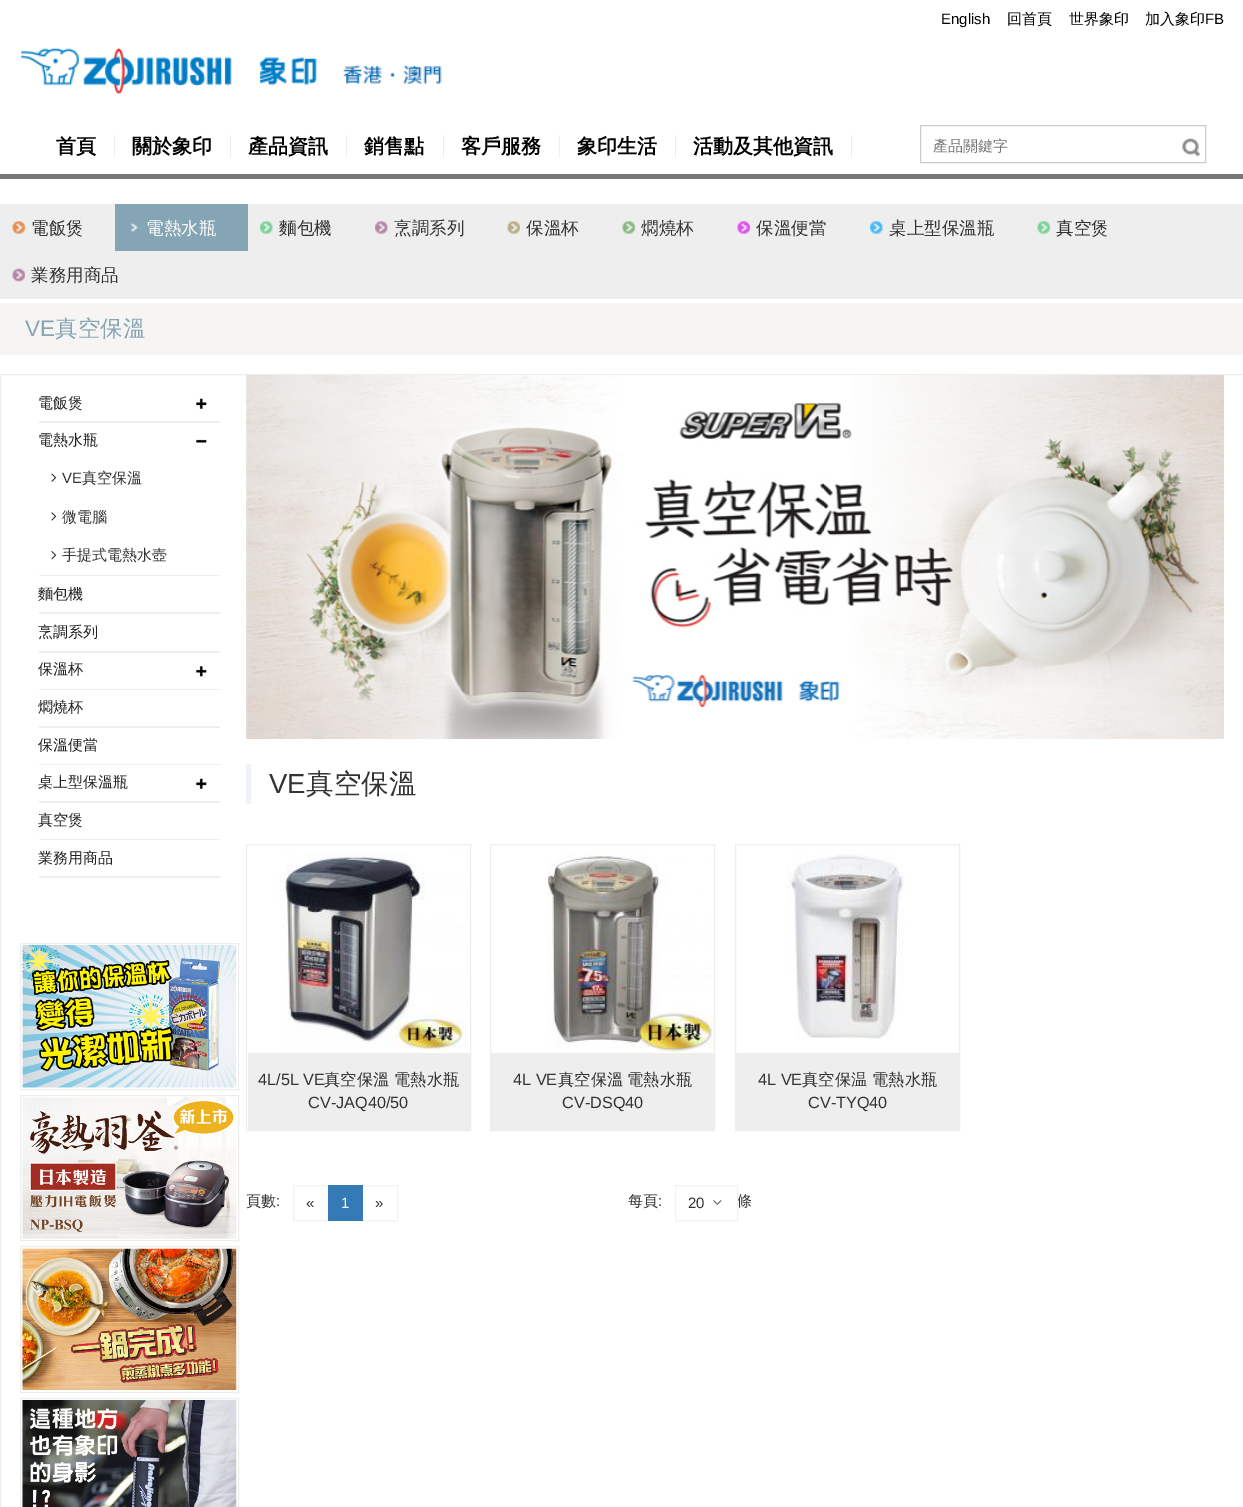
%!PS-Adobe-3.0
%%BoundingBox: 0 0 1243 1507
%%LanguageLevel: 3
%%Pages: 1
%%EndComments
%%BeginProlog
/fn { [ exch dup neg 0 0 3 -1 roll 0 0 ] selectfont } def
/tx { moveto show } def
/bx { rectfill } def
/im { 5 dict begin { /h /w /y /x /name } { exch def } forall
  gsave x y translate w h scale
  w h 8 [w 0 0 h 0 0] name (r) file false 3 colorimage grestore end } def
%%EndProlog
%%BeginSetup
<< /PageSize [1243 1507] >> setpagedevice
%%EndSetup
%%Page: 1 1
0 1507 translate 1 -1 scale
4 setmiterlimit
1 setgray
0 0 1243 1507 bx
/LiberationSans-Regular 15 fn
0 setgray
(English) 941 24 tx
/WenQuanYiZenHei-Medium 15 fn
(回首頁) 1007 24 tx
(世界象印) 1069 24 tx
(加入象印) 1145 24 tx
/LiberationSans-Regular 15 fn
(FB) 1205 24 tx
(image0.raw) 21 48 421 46 im
0.467 setgray
0 174 1243 5 bx
0.933 setgray
114 135 1 23 bx
/WenQuanYiZenHei-Bold 20 fn
0 setgray
(首頁) 56 153 tx
0.933 setgray
230 135 1 23 bx
0 setgray
(關於象印) 132 153 tx
0.933 setgray
346 135 1 23 bx
0 setgray
(產品資訊) 248 153 tx
0.933 setgray
443 135 1 23 bx
0 setgray
(銷售點) 364 153 tx
0.933 setgray
559 135 1 23 bx
0 setgray
(客戶服務) 461 153 tx
0.933 setgray
675 135 1 23 bx
0 setgray
(象印生活) 577 153 tx
0.933 setgray
851 135 1 23 bx
0 setgray
(活動及其他資訊) 693 153 tx
0.8 setgray
920.5 125.5 285 37 rectstroke
/WenQuanYiZenHei-Medium 15 fn
0.459 setgray
(產品關鍵字) 933 151 tx
(image1.raw) 1182 138 18 19 im
0.933 setgray
0 204 1243 95 bx
(image2.raw) 12 221 13 13 im
/WenQuanYiZenHei-Medium 17.5 fn
0.2 setgray
(電飯煲) 31 234 tx
0.522 0.647 0.71 setrgbcolor
115 204 133 47 bx
(image3.raw) 130 223 8 9 im
1 setgray
(電熱水瓶) 146 234 tx
(image4.raw) 260 221 13 13 im
0.2 setgray
(麵包機) 279 234 tx
(image5.raw) 375 221 13 13 im
(烹調系列) 394 234 tx
(image6.raw) 507 221 13 13 im
(保溫杯) 526 234 tx
(image7.raw) 622 221 13 13 im
(燜燒杯) 641 234 tx
(image8.raw) 737 221 13 13 im
(保溫便當) 756 234 tx
(image9.raw) 870 221 13 13 im
(桌上型保溫瓶) 889 234 tx
(image10.raw) 1037 221 13 13 im
(真空煲) 1056 234 tx
(image11.raw) 12 268 13 14 im
(業務用商品) 31 281 tx
0.965 0.961 0.953 setrgbcolor
0 303 1243 52 bx
/LiberationSans-Regular 22.5 fn
0.522 0.647 0.71 setrgbcolor
(VE) 25 336 tx
/WenQuanYiZenHei-Medium 22.5 fn
(真空保溫) 55 336 tx
0.933 setgray
0.5 374.5 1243 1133 rectstroke
0.922 0.941 0.937 setrgbcolor
39 421 181 2 bx
/WenQuanYiZenHei-Medium 15 fn
0.133 setgray
(電飯煲) 38 408 tx
(image12.raw) 196 398 11 11 im
0.922 0.941 0.937 setrgbcolor
39 575 181 1 bx
0.133 setgray
(電熱水瓶) 38 445 tx
(image13.raw) 196 439 11 4 im
(image14.raw) 51 473 6 9 im
/LiberationSans-Regular 15 fn
0.2 setgray
(VE) 62 483 tx
/WenQuanYiZenHei-Medium 15 fn
(真空保溫) 82 483 tx
(image15.raw) 51 512 6 9 im
(微電腦) 62 522 tx
(image16.raw) 51 551 6 9 im
(手提式電熱水壺) 62 560 tx
0.922 0.941 0.937 setrgbcolor
39 612 181 2 bx
0.133 setgray
(麵包機) 38 599 tx
0.922 0.941 0.937 setrgbcolor
39 651 181 2 bx
0.133 setgray
(烹調系列) 38 637 tx
0.922 0.941 0.937 setrgbcolor
39 689 181 1 bx
0.133 setgray
(保溫杯) 38 674 tx
(image17.raw) 196 666 11 11 im
0.922 0.941 0.937 setrgbcolor
39 726 181 2 bx
0.133 setgray
(燜燒杯) 38 712 tx
0.922 0.941 0.937 setrgbcolor
39 764 181 1 bx
0.133 setgray
(保溫便當) 38 750 tx
0.922 0.941 0.937 setrgbcolor
39 801 181 2 bx
0.133 setgray
(桌上型保溫瓶) 38 787 tx
(image12.raw) 196 778 11 11 im
0.922 0.941 0.937 setrgbcolor
39 839 181 1 bx
0.133 setgray
(真空煲) 38 825 tx
0.922 0.941 0.937 setrgbcolor
39 876 181 2 bx
0.133 setgray
(業務用商品) 38 863 tx
0.933 setgray
20.5 943.5 218 146 rectstroke
(image18.raw) 22 945 215 143 im
20.5 1095.5 218 145 rectstroke
(image19.raw) 22 1097 215 142 im
20.5 1246.5 218 146 rectstroke
(image20.raw) 22 1248 215 142 im
20.5 1398.5 218 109 rectstroke
(image21.raw) 22 1400 215 107 im
(image22.raw) 246 375 978 364 im
0.937 0.949 0.98 setrgbcolor
246 764 5 40 bx
/LiberationSans-Regular 27.5 fn
0.2 setgray
(VE) 269 793 tx
/WenQuanYiZenHei-Medium 27.5 fn
(真空保溫) 306 793 tx
0.933 setgray
246.5 844.5 224 286 rectstroke
(image23.raw) 279 852 187 198 im
248 1053 222 77 bx
/LiberationSans-Regular 16.25 fn
0.2 setgray
(4L/5L VE) 258 1085 tx
/WenQuanYiZenHei-Medium 16.25 fn
(真空保溫) 324 1085 tx
(電熱水瓶) 394 1085 tx
/LiberationSans-Regular 16.25 fn
(CV-JAQ40/50) 308 1108 tx
0.933 setgray
490.5 844.5 224 286 rectstroke
(image24.raw) 547 855 167 198 im
491 1053 223 77 bx
0.2 setgray
(4L VE) 513 1085 tx
/WenQuanYiZenHei-Medium 16.25 fn
(真空保溫) 558 1085 tx
(電熱水瓶) 627 1085 tx
/LiberationSans-Regular 16.25 fn
(CV-DSQ40) 562 1108 tx
0.933 setgray
735.5 844.5 224 286 rectstroke
(image25.raw) 786 854 119 185 im
736 1053 223 77 bx
0.2 setgray
(4L VE) 758 1085 tx
/WenQuanYiZenHei-Medium 16.25 fn
(真空保温) 802 1085 tx
(電熱水瓶) 872 1085 tx
/LiberationSans-Regular 16.25 fn
(CV-TYQ40) 808 1108 tx
/WenQuanYiZenHei-Medium 15 fn
(頁數) 246 1206 tx
/LiberationSans-Regular 15 fn
(:) 276 1206 tx
0.953 setgray
293.5 1185.5 35 35 rectstroke
0.2 setgray
(«) 306 1208 tx
0.953 setgray
361.5 1185.5 36 35 rectstroke
0.2 0.478 0.718 setrgbcolor
328 1185 35 36 bx
1 setgray
(1) 341 1208 tx
0.2 setgray
(») 375 1208 tx
/WenQuanYiZenHei-Medium 15 fn
(每頁) 628 1206 tx
/LiberationSans-Regular 15 fn
(:) 658 1206 tx
/WenQuanYiZenHei-Medium 15 fn
(條) 737 1206 tx
0.953 setgray
675.5 1185.5 62 35 rectstroke
/LiberationSans-Regular 15 fn
0.2 setgray
(20) 688 1208 tx
(image26.raw) 713 1200 9 5 im
showpage
%%EOF
